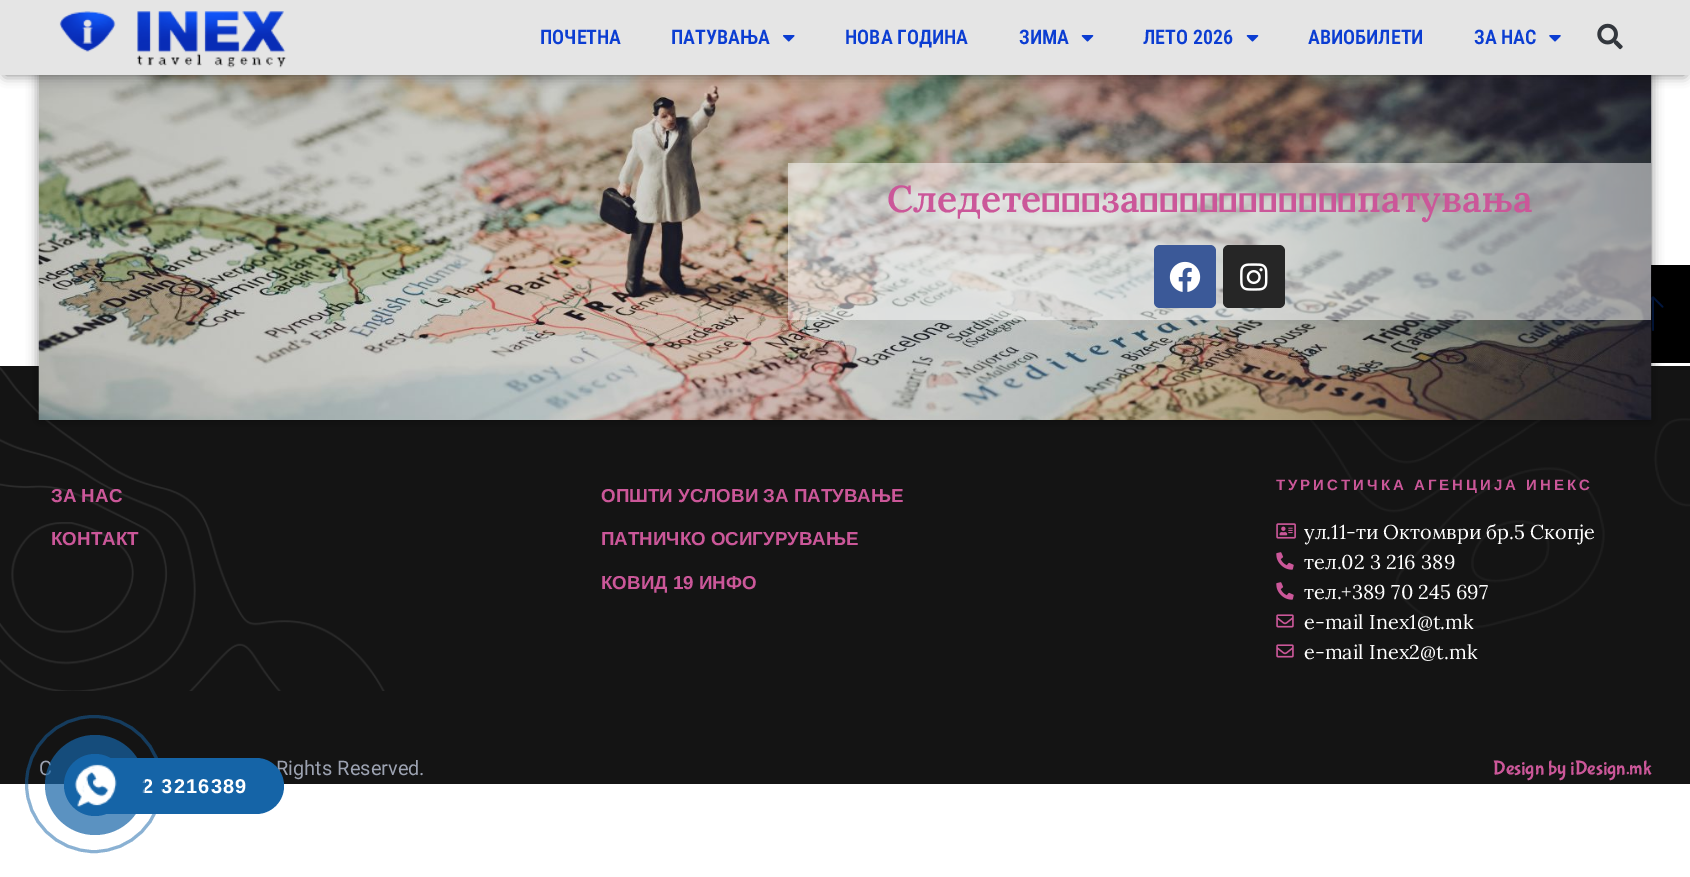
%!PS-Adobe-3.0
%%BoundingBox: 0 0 1690 877
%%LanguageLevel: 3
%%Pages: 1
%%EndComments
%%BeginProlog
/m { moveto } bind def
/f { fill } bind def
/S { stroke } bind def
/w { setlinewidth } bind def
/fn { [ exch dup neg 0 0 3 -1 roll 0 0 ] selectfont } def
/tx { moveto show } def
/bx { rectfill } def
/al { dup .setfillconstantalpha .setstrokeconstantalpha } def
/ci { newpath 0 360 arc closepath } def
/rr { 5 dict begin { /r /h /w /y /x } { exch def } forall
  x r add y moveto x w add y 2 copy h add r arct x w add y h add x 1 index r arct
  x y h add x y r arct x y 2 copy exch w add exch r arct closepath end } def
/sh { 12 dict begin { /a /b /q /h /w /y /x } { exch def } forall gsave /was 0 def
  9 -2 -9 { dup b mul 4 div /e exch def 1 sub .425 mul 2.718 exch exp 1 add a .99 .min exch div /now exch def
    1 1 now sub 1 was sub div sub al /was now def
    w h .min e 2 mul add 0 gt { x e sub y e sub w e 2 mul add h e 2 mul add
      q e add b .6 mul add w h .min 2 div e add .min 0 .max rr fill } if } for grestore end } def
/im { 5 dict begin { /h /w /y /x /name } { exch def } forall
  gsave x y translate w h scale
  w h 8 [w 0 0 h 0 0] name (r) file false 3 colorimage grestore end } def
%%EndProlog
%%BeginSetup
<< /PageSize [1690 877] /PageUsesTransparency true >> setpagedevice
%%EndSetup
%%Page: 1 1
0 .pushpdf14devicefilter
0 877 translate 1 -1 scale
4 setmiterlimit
1 setgray
0 0 1690 877 bx
0 setgray
1651 265 39 98 bx
(image8.raw) 1651 296 13 35 im
0.078 setgray
0 366 1690 418 bx
(image9.raw) 0 367 385 324 im
(image10.raw) 1310 418 380 211 im
0 setgray
39 63 1612 357 0 6 0.5 sh
(image5.raw) 38 75 1614 345 im
5 10 1680 65 0 6 0.5 sh
0.898 setgray
0 0 1690 75 bx
(image0.raw) 59 11 228 57 im
/RobotoCondensed-SemiBold 20 fn
0.043 0.239 0.824 setrgbcolor
(ПОЧЕТНА) 540 44 tx
(ПАТУВАЊА) 671 44 tx
(image1.raw) 783 35 12 7 im
(НОВА ГОДИНА) 845 44 tx
(ЗИМА) 1019 44 tx
(image2.raw) 1081 35 13 7 im
(ЛЕТО 2026) 1143 44 tx
(image2.raw) 1246 35 13 7 im
(АВИОБИЛЕТИ) 1308 44 tx
(ЗА НАС) 1474 44 tx
(image3.raw) 1549 35 12 7 im
(image4.raw) 1597 23 26 27 im
0.5 al
1 setgray
788 163 863 157 bx
/Lora-SemiBold 37.5 fn
1 al
0.796 0.341 0.6 setrgbcolor
(Следете не за актуелните патувања) 887 212 tx
0.231 0.349 0.596 setrgbcolor
1154 245 62 63 6 rr f
(image6.raw) 1169 261 32 31 im
0.149 setgray
1223 245 62 63 6 rr f
(image7.raw) 1240 263 28 28 im
/LiberationSans-Bold 18.75 fn
0.796 0.341 0.6 setrgbcolor
(ЗА НАС) 51 502 tx
(КОНТАКТ) 51 545 tx
(ОПШТИ УСЛОВИ ЗА ПАТУВАЊЕ) 601 502 tx
(ПАТНИЧКО ОСИГУРУВАЊЕ) 601 545 tx
(КОВИД 19 ИНФО) 601 589 tx
/LiberationSans-Bold 15 fn
1276 490 m 3 0 (ТУРИСТИЧКА АГЕНЦИЈА ИНЕКС) ashow
(image11.raw) 1276 523 20 16 im
/Lora-Regular 20 fn
1 setgray
(ул.11-ти Октомври бр.5 Скопје) 1304 539 tx
(image12.raw) 1276 552 18 18 im
(тел.02 3 216 389) 1304 569 tx
(image12.raw) 1276 582 18 18 im
(тел.+389 70 245 697) 1304 599 tx
(image13.raw) 1276 614 18 14 im
(e-mail Inex1@t.mk) 1304 629 tx
(image13.raw) 1276 644 18 14 im
(e-mail Inex2@t.mk) 1304 659 tx
/Roboto-Regular 20 fn
0.612 0.635 0.694 setrgbcolor
(C) 39 775 tx
(Rights Reserved.) 276 775 tx
/BubblegumSans-Regular 20 fn
0.796 0.341 0.6 setrgbcolor
(Design by iDesign.mk) 1493 774 tx
0.082 0.392 0.655 setrgbcolor
78 758 206 56 28 rr f
/LiberationSans-Bold 20 fn
1 setgray
142 793 m 1.25 0 (2 3216389) ashow
0.5 al
0.082 0.392 0.655 setrgbcolor
3 w
94 784 67.5 ci S
0.7 al
95 785 50 ci f
1 al
95 785 31 ci f
(image14.raw) 74 764 43 43 im
.poppdf14devicefilter showpage
%%EOF
